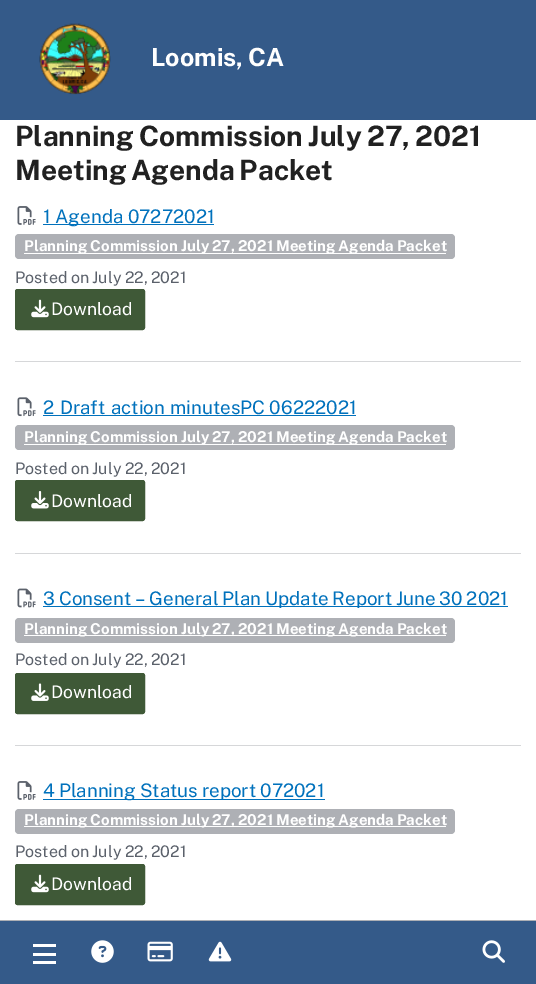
%!PS-Adobe-3.0
%%BoundingBox: 0 0 536 984
%%LanguageLevel: 3
%%Pages: 1
%%EndComments
%%BeginProlog
/m { moveto } bind def
/f { fill } bind def
/S { stroke } bind def
/q { gsave } bind def
/Q { grestore } bind def
/fn { [ exch dup neg 0 0 3 -1 roll 0 0 ] selectfont } def
/tx { moveto show } def
/bx { rectfill } def
/rr { 5 dict begin { /r /h /w /y /x } { exch def } forall
  x r add y moveto x w add y 2 copy h add r arct x w add y h add x 1 index r arct
  x y h add x y r arct x y 2 copy exch w add exch r arct closepath end } def
/im { 5 dict begin { /h /w /y /x /name } { exch def } forall
  gsave x y translate w h scale
  w h 8 [w 0 0 h 0 0] name (r) file false 3 colorimage grestore end } def
%%EndProlog
%%BeginSetup
<< /PageSize [536 984] >> setpagedevice
%%EndSetup
%%Page: 1 1
0 984 translate 1 -1 scale
4 setmiterlimit
1 setgray
0 0 536 984 bx
0.204 0.353 0.537 setrgbcolor
0 0 536 120 bx
(image0.raw) 39 23 72 72 im
/PublicSans-Bold 25 fn
1 setgray
151 66 m -1 0 32 (Loomis, CA) widthshow
0.204 0.353 0.537 setrgbcolor
0 921 536 63 bx
0.682 0.69 0.71 setrgbcolor
0 920 536 1 bx
(image1.raw) 91 940 23 23 im
(image2.raw) 147 941 26 21 im
(image3.raw) 208 941 24 21 im
(image4.raw) 482 940 23 23 im
1 setgray
33 953 23 3 bx
33 944 23 3 bx
33 961 23 3 bx
/PublicSans-Bold 28.1 fn
0.129 setgray
15 146 m -1 0 32 (Planning Commission July 27, 2021) widthshow
15 180 m -2 0 32 (Meeting Agenda Packet) widthshow
(image5.raw) 17 206 19 19 im
0 0.443 0.737 setrgbcolor
43 224 171 1 bx
/PublicSans-Regular 18.75 fn
(1 Agenda 07272021) 43 223 tx
0.682 0.69 0.71 setrgbcolor
15 234 440 25 4 rr f
1 setgray
24 253 422 1 bx
/PublicSans-Bold 15 fn
24 251 m -0.5 0 32 (Planning Commission July 27, 2021 Meeting Agenda Packet) widthshow
/PublicSans-Regular 16 fn
0.357 0.38 0.42 setrgbcolor
15 283 m -0.5 0 32 (Posted on July 22, 2021) widthshow
0.247 0.349 0.216 setrgbcolor
15.5 289.5 129 40 2 rr q f Q
S
(image6.raw) 31 299 18 19 im
/PublicSans-Regular 17.5 fn
1 setgray
(Download) 51 315 tx
0.839 0.843 0.851 setrgbcolor
15 361 506 1 bx
(image7.raw) 17 397 19 20 im
/PublicSans-Regular 18.75 fn
0 0.443 0.737 setrgbcolor
43 414 m 1 0 32 (2 Draft action minutes) widthshow
43 415 313 1 bx
(PC 06222021) 240 414 tx
0.682 0.69 0.71 setrgbcolor
15 425 440 25 4 rr f
1 setgray
24 444 422 1 bx
/PublicSans-Bold 15 fn
24 442 m -0.5 0 32 (Planning Commission July 27, 2021 Meeting Agenda Packet) widthshow
/PublicSans-Regular 16 fn
0.357 0.38 0.42 setrgbcolor
15 474 m -0.5 0 32 (Posted on July 22, 2021) widthshow
0.247 0.349 0.216 setrgbcolor
15.5 480.5 129 40 2 rr q f Q
S
(image8.raw) 31 491 18 18 im
/PublicSans-Regular 17.5 fn
1 setgray
(Download) 51 507 tx
0.839 0.843 0.851 setrgbcolor
15 553 506 1 bx
(image9.raw) 17 588 19 20 im
0 0.443 0.737 setrgbcolor
43 606 465 1 bx
/PublicSans-Regular 18.75 fn
43 605 m -0.75 0 32 (3 Consent – General Plan Update Report June 30 2021) widthshow
0.682 0.69 0.71 setrgbcolor
15 618 440 25 4 rr f
1 setgray
24 635 422 1 bx
/PublicSans-Bold 15 fn
24 634 m -0.5 0 32 (Planning Commission July 27, 2021 Meeting Agenda Packet) widthshow
/PublicSans-Regular 16 fn
0.357 0.38 0.42 setrgbcolor
15 665 m -0.5 0 32 (Posted on July 22, 2021) widthshow
0.247 0.349 0.216 setrgbcolor
15.5 673.5 129 40 2 rr q f Q
S
(image10.raw) 31 683 18 18 im
/PublicSans-Regular 17.5 fn
1 setgray
(Download) 51 698 tx
0.839 0.843 0.851 setrgbcolor
15 745 506 1 bx
(image5.raw) 17 781 19 19 im
0 0.443 0.737 setrgbcolor
43 799 282 1 bx
/PublicSans-Regular 18.75 fn
43 797 m -0.5 0 32 (4 Planning Status report 072021) widthshow
0.682 0.69 0.71 setrgbcolor
15 809 440 25 4 rr f
1 setgray
24 826 422 1 bx
/PublicSans-Bold 15 fn
24 825 m -0.5 0 32 (Planning Commission July 27, 2021 Meeting Agenda Packet) widthshow
/PublicSans-Regular 16 fn
0.357 0.38 0.42 setrgbcolor
15 857 m -0.5 0 32 (Posted on July 22, 2021) widthshow
0.247 0.349 0.216 setrgbcolor
15.5 864.5 129 40 2 rr q f Q
S
(image6.raw) 31 874 18 19 im
/PublicSans-Regular 17.5 fn
1 setgray
(Download) 51 890 tx
showpage
%%EOF
